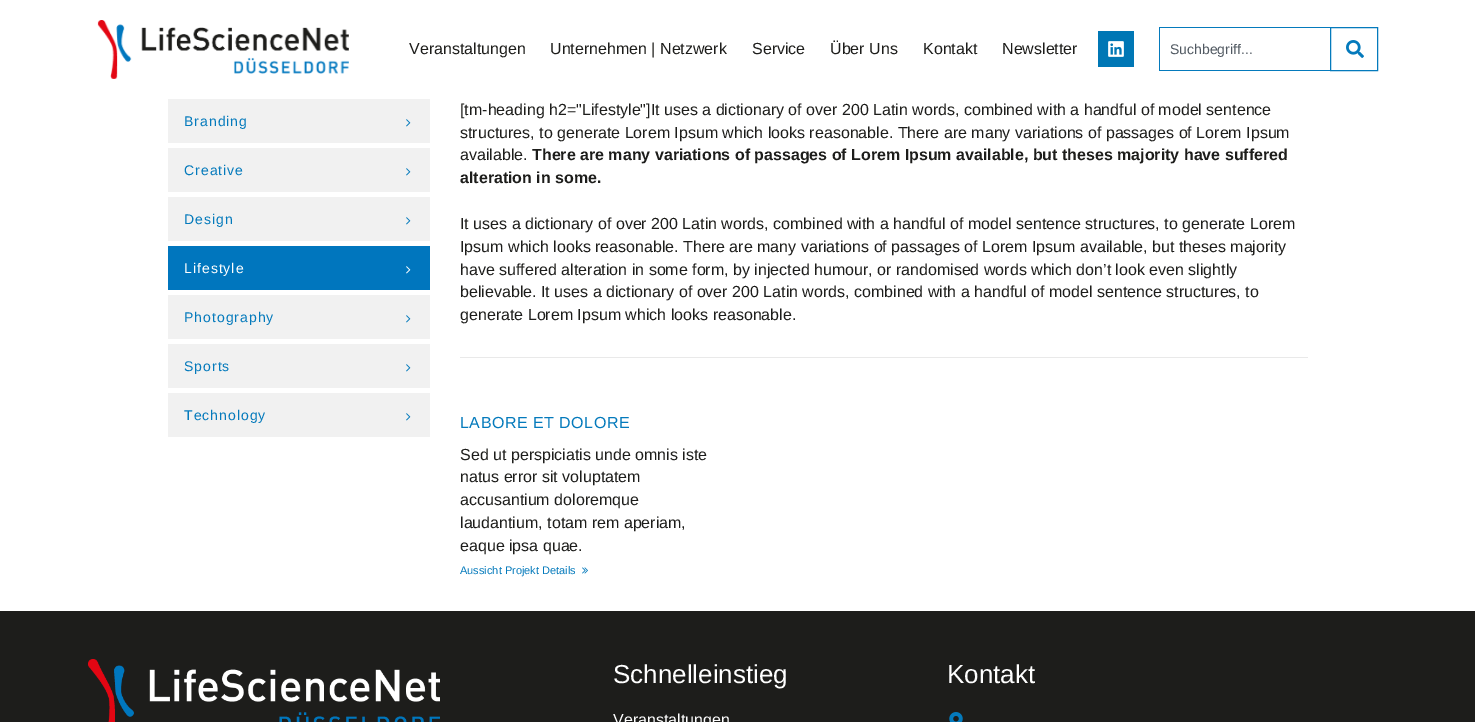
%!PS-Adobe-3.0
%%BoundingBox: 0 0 1475 722
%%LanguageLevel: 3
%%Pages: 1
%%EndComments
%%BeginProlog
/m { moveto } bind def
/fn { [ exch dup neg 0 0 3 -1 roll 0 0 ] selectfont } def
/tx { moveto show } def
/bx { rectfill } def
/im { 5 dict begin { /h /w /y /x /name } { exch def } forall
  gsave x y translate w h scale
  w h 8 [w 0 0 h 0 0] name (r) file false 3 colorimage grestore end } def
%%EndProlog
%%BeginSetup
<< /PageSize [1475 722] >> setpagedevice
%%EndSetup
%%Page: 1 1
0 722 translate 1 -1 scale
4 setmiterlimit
1 setgray
0 0 1475 722 bx
(image0.raw) 97 20 252 59 im
/LiberationSans-Regular 16 fn
0.114 0.114 0.106 setrgbcolor
(Veranstaltungen) 409 54 tx
(Unternehmen | Netzwerk) 550 54 tx
(Service) 752 54 tx
(Über Uns) 830 54 tx
(Kontakt) 923 54 tx
(Newsletter) 1002 54 tx
0 0.467 0.71 setrgbcolor
1098 31 36 36 bx
(image1.raw) 1108 41 16 16 im
0.016 0.478 0.737 setrgbcolor
1159 27 171 1 bx
1159 70 171 1 bx
1159 27 1 44 bx
/LiberationSans-Regular 14 fn
0.318 0.349 0.384 setrgbcolor
(Suchbegriff...) 1170 54 tx
0.016 0.478 0.737 setrgbcolor
1330.5 27.5 47 43 rectstroke
(image2.raw) 1346 40 18 18 im
0.945 setgray
168 99 262 44 bx
0.016 0.478 0.737 setrgbcolor
184 126 m 1 0 (Branding) ashow
(image3.raw) 406 119 5 8 im
0.945 setgray
168 148 262 44 bx
0.016 0.478 0.737 setrgbcolor
184 175 m 1 0 (Creative) ashow
(image3.raw) 406 168 5 8 im
0.945 setgray
168 197 262 44 bx
0.016 0.478 0.737 setrgbcolor
184 224 m 1 0 (Design) ashow
(image3.raw) 406 217 5 8 im
0 0.463 0.745 setrgbcolor
168 246 262 44 bx
1 setgray
184 273 m 1 0 (Lifestyle) ashow
(image4.raw) 406 266 5 8 im
0.945 setgray
168 295 262 44 bx
0.016 0.478 0.737 setrgbcolor
184 322 m 1 0 (Photography) ashow
(image3.raw) 406 315 5 8 im
0.945 setgray
168 344 262 44 bx
0.016 0.478 0.737 setrgbcolor
184 371 m 1 0 (Sports) ashow
(image3.raw) 406 364 5 8 im
0.945 setgray
168 393 262 44 bx
0.016 0.478 0.737 setrgbcolor
184 420 m 1 0 (Technology) ashow
(image3.raw) 406 413 5 8 im
0.914 setgray
460 357 848 1 bx
/LiberationSans-Regular 16 fn
0.114 0.114 0.106 setrgbcolor
([tm-heading h2="Lifestyle"]It uses a dictionary of over 200 Latin words, combined with a handful of model sentence) 460 115 tx
(structures, to generate Lorem Ipsum which looks reasonable. There are many variations of passages of Lorem Ipsum) 460 138 tx
(available.) 460 160 tx
/LiberationSans-Bold 16 fn
(There are many variations of passages of Lorem Ipsum available, but theses majority have suffered) 532 160 tx
(alteration in some.) 460 183 tx
/LiberationSans-Regular 16 fn
(It uses a dictionary of over 200 Latin words, combined with a handful of model sentence structures, to generate Lorem) 460 229 tx
(Ipsum which looks reasonable. There are many variations of passages of Lorem Ipsum available, but theses majority) 460 252 tx
(have suffered alteration in some form, by injected humour, or randomised words which don’t look even slightly) 460 275 tx
(believable. It uses a dictionary of over 200 Latin words, combined with a handful of model sentence structures, to) 460 297 tx
(generate Lorem Ipsum which looks reasonable.) 460 320 tx
0.016 0.478 0.737 setrgbcolor
460 428 m 0.5 0 (LABORE ET DOLORE) ashow
0.114 0.114 0.106 setrgbcolor
(Sed ut perspiciatis unde omnis iste) 460 460 tx
(natus error sit voluptatem) 460 482 tx
(accusantium doloremque) 460 505 tx
(laudantium, totam rem aperiam,) 460 528 tx
(eaque ipsa quae.) 460 551 tx
/LiberationSans-Regular 11 fn
0.016 0.478 0.737 setrgbcolor
(Aussicht Projekt Details) 460 574 tx
(image5.raw) 582 567 6 7 im
0.114 0.114 0.106 setrgbcolor
0 611 1475 111 bx
(image6.raw) 88 659 352 63 im
/LiberationSans-Regular 26 fn
1 setgray
(Schnelleinstieg) 613 683 tx
/LiberationSans-Regular 16 fn
(Veranstaltungen) 613 725 tx
/LiberationSans-Regular 26 fn
(Kontakt) 947 683 tx
(image7.raw) 949 712 14 10 im
showpage
%%EOF
